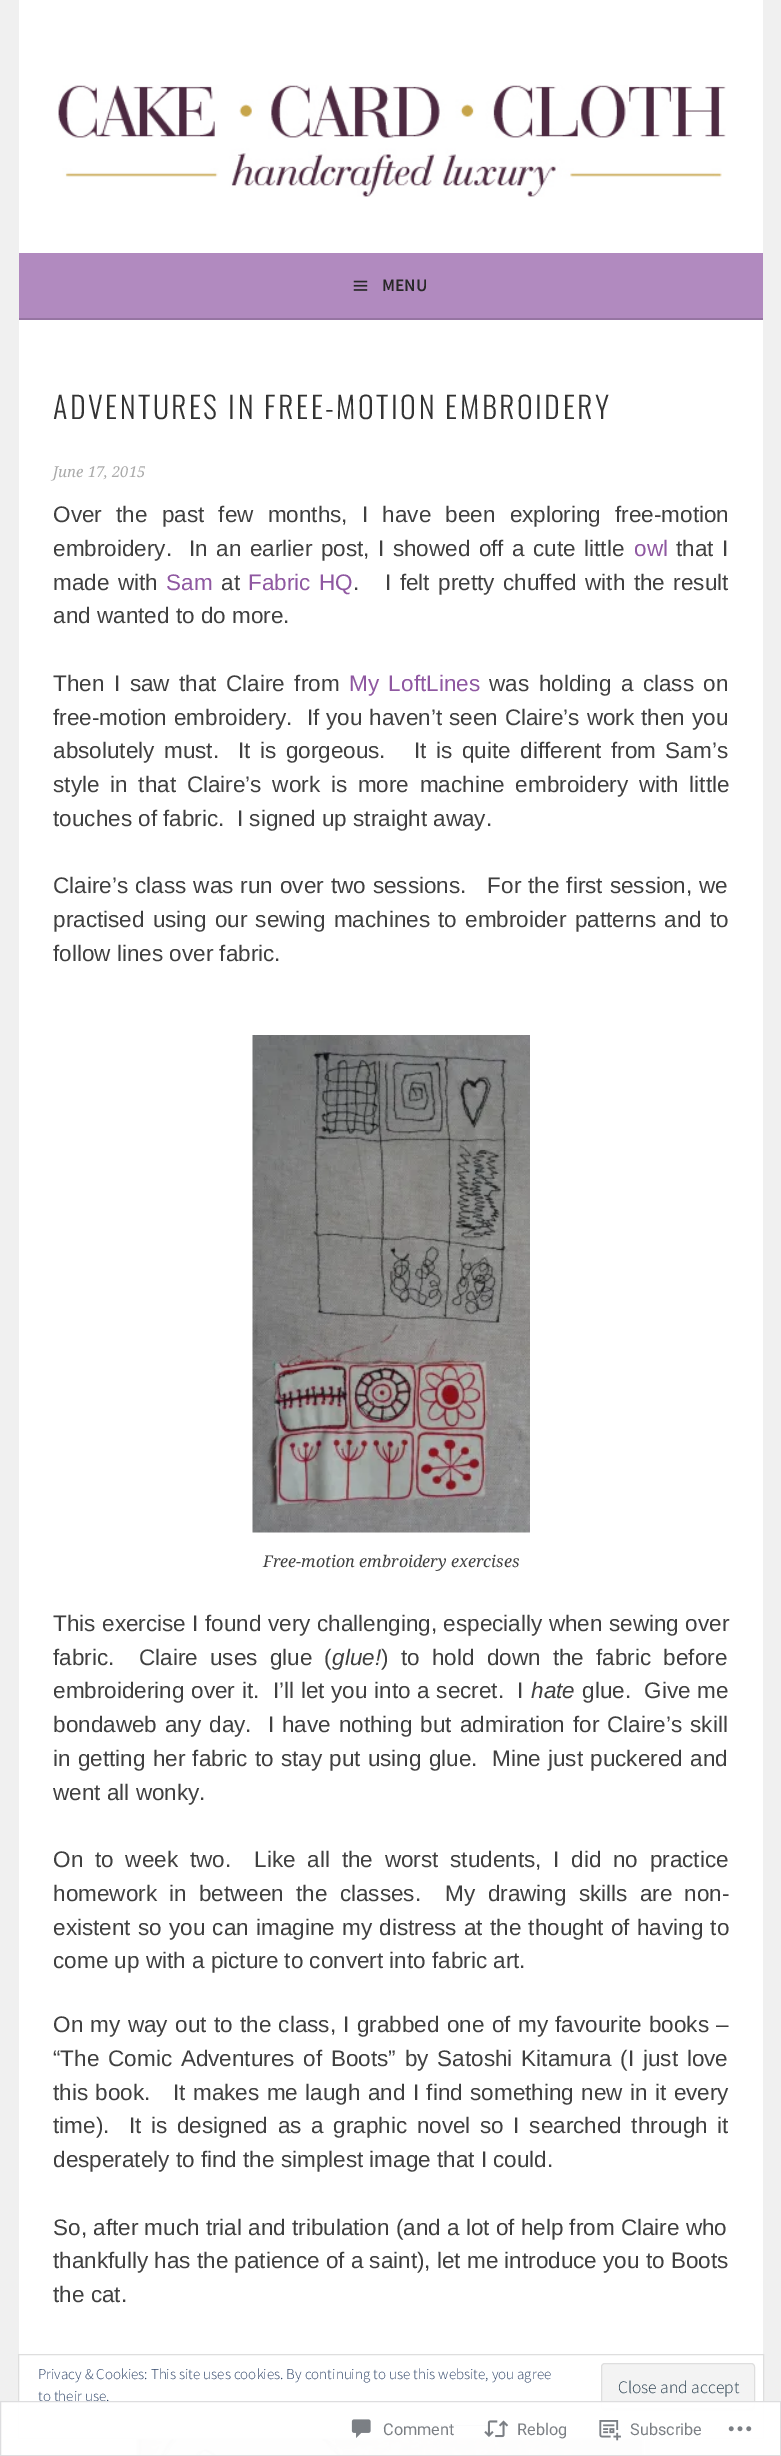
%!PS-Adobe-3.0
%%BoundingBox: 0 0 781 2456
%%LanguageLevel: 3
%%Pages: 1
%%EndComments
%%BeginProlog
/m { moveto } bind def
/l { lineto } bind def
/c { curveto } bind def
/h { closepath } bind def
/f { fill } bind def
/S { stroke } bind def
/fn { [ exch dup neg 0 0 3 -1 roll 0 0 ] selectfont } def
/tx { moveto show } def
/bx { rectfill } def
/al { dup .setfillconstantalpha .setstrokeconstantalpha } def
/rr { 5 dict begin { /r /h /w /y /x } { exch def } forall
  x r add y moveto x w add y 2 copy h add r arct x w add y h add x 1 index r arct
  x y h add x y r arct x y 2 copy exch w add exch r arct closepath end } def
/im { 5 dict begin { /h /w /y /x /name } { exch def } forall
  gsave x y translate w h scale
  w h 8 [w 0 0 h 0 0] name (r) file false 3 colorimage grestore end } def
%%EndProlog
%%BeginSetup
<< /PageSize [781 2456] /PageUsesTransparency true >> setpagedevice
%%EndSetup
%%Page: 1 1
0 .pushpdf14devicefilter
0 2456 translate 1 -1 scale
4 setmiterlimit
0.941 setgray
0 0 781 2456 bx
1 setgray
19 0 744 253 bx
(image0.raw) 58 85 668 112 im
0.694 0.541 0.749 setrgbcolor
19 253 744 65 bx
0.588 0.459 0.635 setrgbcolor
19 318 744 2 bx
(image1.raw) 353 280 15 11 im
/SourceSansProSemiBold-SemiBold 17.5 fn
0.157 setgray
(MENU) 382 291 tx
1 setgray
19 320 744 2136 bx
/Oswald-Light 30 fn
0.2 setgray
53 419 m 2.5 0 (ADVENTURES IN FREE-MOTION EMBROIDERY) ashow
/DroidSerif-Italic 15 fn
0.667 setgray
(June 17, 2015) 53 477 tx
/LiberationSans-Regular 22.5 fn
0.251 setgray
53 522 m 8 0 32 (Over the past few months, I have been exploring free-motion) widthshow
53 556 m 2.25 0 32 (embroidery.  In an earlier post, I showed off a cute little) widthshow
0.561 0.345 0.631 setrgbcolor
(owl) 634 556 tx
0.251 setgray
676 556 m 2.25 0 32 (that I) widthshow
53 590 m 2.25 0 32 (made with) widthshow
0.561 0.345 0.631 setrgbcolor
(Sam) 166 590 tx
0.251 setgray
(at) 221 590 tx
0.561 0.345 0.631 setrgbcolor
248 590 m 2.25 0 32 (Fabric HQ) widthshow
0.251 setgray
353 590 m 2.25 0 32 (.   I felt pretty chuffed with the result) widthshow
(and wanted to do more.) 53 623 tx
53 691 m 3.25 0 32 (Then I saw that Claire from) widthshow
0.561 0.345 0.631 setrgbcolor
349 691 m 3.25 0 32 (My LoftLines) widthshow
0.251 setgray
489 691 m 3.25 0 32 (was holding a class on) widthshow
53 725 m 0.75 0 32 (free-motion embroidery.  If you haven’t seen Claire’s work then you) widthshow
53 758 m 3.25 0 32 (absolutely must.  It is gorgeous.   It is quite different from Sam’s) widthshow
53 792 m 4.5 0 32 (style in that Claire’s work is more machine embroidery with little) widthshow
(touches of fabric.  I signed up straight away.) 53 826 tx
53 893 m 0.75 0 32 (Claire’s class was run over two sessions.   For the first session, we) widthshow
53 927 m 2 0 32 (practised using our sewing machines to embroider patterns and to) widthshow
(follow lines over fabric.) 53 961 tx
(image2.raw) 252 1035 278 498 im
/DroidSerif-Italic 16.25 fn
(Free-motion embroidery exercises) 263 1567 tx
/LiberationSans-Regular 22.5 fn
53 1631 m 0.25 0 32 (This exercise I found very challenging, especially when sewing over) widthshow
53 1665 m 6 0 32 (fabric.  Claire uses glue \() widthshow
/LiberationSans-Italic 22.5 fn
(glue!) 332 1665 tx
/LiberationSans-Regular 22.5 fn
381 1665 m 6 0 32 (\) to hold down the fabric before) widthshow
53 1698 m 0.5 0 32 (embroidering over it.  I’ll let you into a secret.  I) widthshow
/LiberationSans-Italic 22.5 fn
(hate) 531 1698 tx
/LiberationSans-Regular 22.5 fn
582 1698 m 0.5 0 32 (glue.  Give me) widthshow
53 1732 m 1.75 0 32 (bondaweb any day.  I have nothing but admiration for Claire’s skill) widthshow
53 1766 m 1 0 32 (in getting her fabric to stay put using glue.  Mine just puckered and) widthshow
(went all wonky.) 53 1800 tx
53 1867 m 5.5 0 32 (On to week two.  Like all the worst students, I did no practice) widthshow
53 1901 m 6 0 32 (homework in between the classes.  My drawing skills are non-) widthshow
53 1935 m 1 0 32 (existent so you can imagine my distress at the thought of having to) widthshow
(come up with a picture to convert into fabric art.) 53 1968 tx
53 2032 m 1.1 0 32 (On my way out to the class, I grabbed one of my favourite books –) widthshow
53 2066 m 2.6 0 32 (“The Comic Adventures of Boots” by Satoshi Kitamura \(I just love) widthshow
53 2100 m 1.2 0 32 (this book.   It makes me laugh and I find something new in it every) widthshow
53 2133 m 3.4 0 32 (time\).  It is designed as a graphic novel so I searched through it) widthshow
(desperately to find the simplest image that I could.) 53 2167 tx
(So, after much trial and tribulation \(and a lot of help from Claire who) 53 2235 tx
(thankfully has the patience of a saint\), let me introduce you to Boots) 53 2268 tx
(the cat.) 53 2302 tx
(image3.raw) 131 2439 519 17 im
0.871 setgray
18.5 2354.5 745 84 rectstroke
/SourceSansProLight-Light 15 fn
0.18 0.267 0.404 setrgbcolor
(Privacy & Cookies: This site uses cookies. By continuing to use this website, you agree) 38 2379 tx
(to their use.) 38 2401 tx
0.953 setgray
601 2363 154 48 4 rr f
0.859 setgray
603 2407 m 603 2408 l 603 2409 604 2410 606 2410 c 752 2410 l 753 2410 754 2409 754 2408 c 754 2405 l 754 2412 728 2408 727 2408 c 605 2408 l h f
0.871 setgray
601.5 2363.5 153 47 3.5 rr S
/SourceSansProLight-Light 17.5 fn
0.18 0.267 0.325 setrgbcolor
(Close and accept) 618 2393 tx
0.18 0.267 0.404 setrgbcolor
406 2425 82 1 bx
0.98 al
1 setgray
0 2401 781 55 bx
0.863 0.863 0.871 setrgbcolor
0.5 2401.5 780 54 rectstroke
1 al
(image4.raw) 351 2419 20 19 im
/Roboto-Regular 16.25 fn
0.482 0.498 0.518 setrgbcolor
(Comment) 383 2435 tx
(image5.raw) 484 2420 25 18 im
(Reblog) 517 2435 tx
(image6.raw) 599 2420 22 21 im
(Subscribe) 630 2435 tx
(image7.raw) 728 2426 24 6 im
.poppdf14devicefilter showpage
%%EOF
